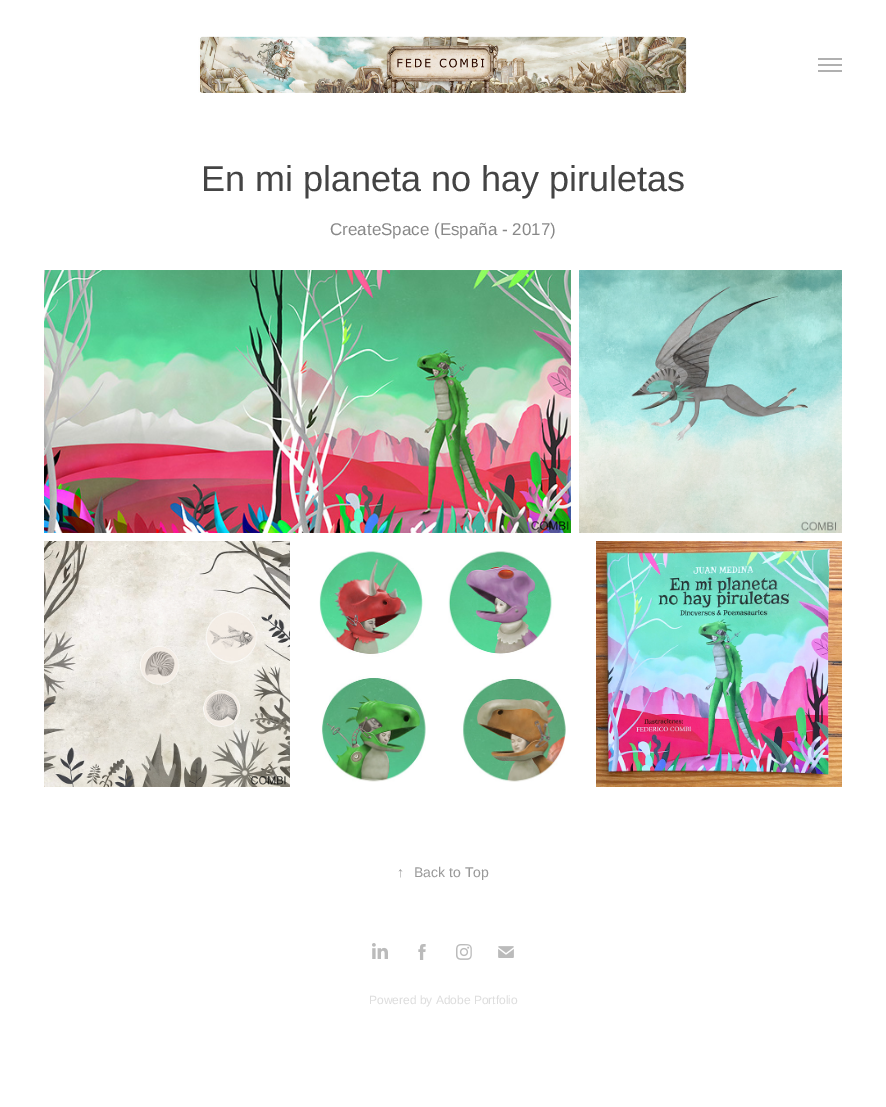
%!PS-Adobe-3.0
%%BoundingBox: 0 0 886 1107
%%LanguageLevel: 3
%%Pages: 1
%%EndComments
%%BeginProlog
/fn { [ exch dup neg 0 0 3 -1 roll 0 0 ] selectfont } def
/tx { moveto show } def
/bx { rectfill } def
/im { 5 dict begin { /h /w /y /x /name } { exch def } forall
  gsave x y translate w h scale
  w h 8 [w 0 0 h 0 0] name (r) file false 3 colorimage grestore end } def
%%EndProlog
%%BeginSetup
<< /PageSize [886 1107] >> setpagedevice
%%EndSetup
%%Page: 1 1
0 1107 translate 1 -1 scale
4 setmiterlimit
1 setgray
0 0 886 1107 bx
(image0.raw) 198 36 489 57 im
0.69 setgray
818 58 24 2 bx
818 64 24 2 bx
818 70 24 2 bx
/LiberationSans-Regular 36 fn
0.267 setgray
(En mi planeta no hay piruletas) 201 191 tx
/LiberationSans-Regular 17 fn
0.533 setgray
(CreateSpace \(España - 2017\)) 330 235 tx
(image1.raw) 44 270 527 263 im
(image2.raw) 579 270 263 263 im
(image3.raw) 44 541 246 246 im
(image4.raw) 319 551 247 231 im
(image5.raw) 596 541 246 246 im
/LiberationSans-Regular 14 fn
0.6 setgray
(↑) 397 877 tx
(Back to Top) 414 877 tx
(image6.raw) 372 943 16 16 im
(image7.raw) 418 944 8 16 im
(image8.raw) 456 944 16 16 im
(image9.raw) 498 946 16 12 im
/LiberationSans-Regular 12 fn
0.867 setgray
(Powered by Adobe Portfolio) 369 1004 tx
showpage
%%EOF
